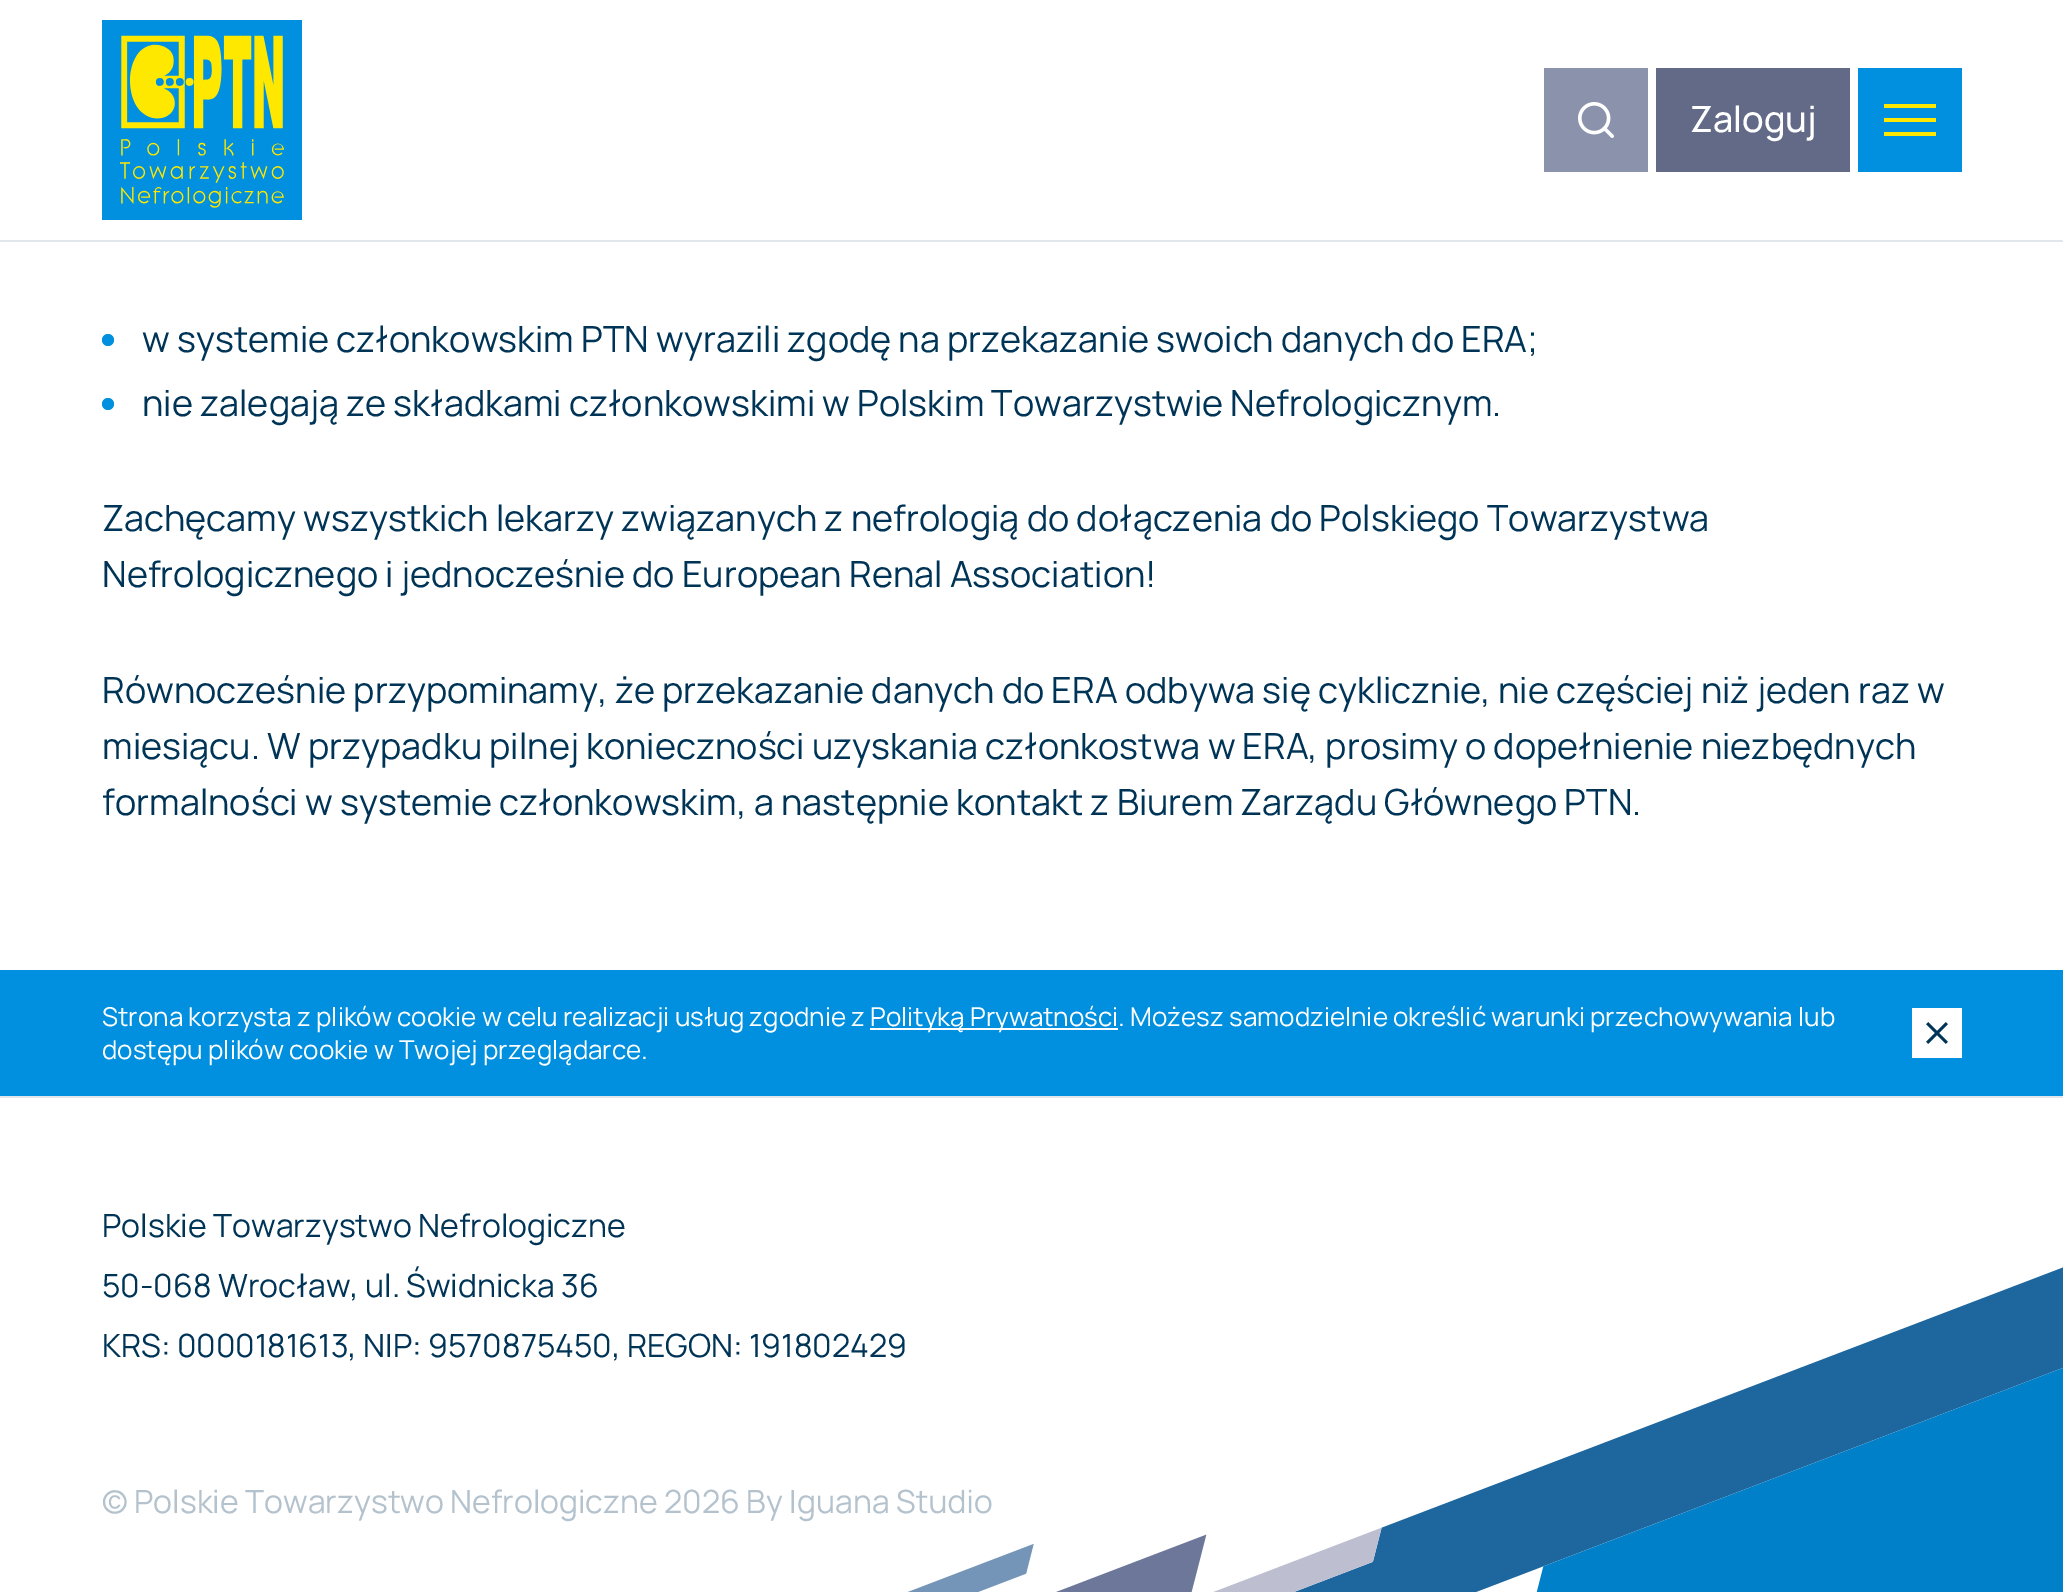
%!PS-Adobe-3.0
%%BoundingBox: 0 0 2063 1592
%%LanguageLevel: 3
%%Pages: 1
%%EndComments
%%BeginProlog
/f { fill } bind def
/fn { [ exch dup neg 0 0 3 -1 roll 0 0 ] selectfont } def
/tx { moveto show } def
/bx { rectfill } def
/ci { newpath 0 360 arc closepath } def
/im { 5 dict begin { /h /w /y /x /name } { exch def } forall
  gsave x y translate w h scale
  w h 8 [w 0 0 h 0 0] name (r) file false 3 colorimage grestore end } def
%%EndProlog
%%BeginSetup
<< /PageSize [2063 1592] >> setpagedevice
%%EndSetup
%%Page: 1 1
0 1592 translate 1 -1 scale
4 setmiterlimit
1 setgray
0 0 2063 1592 bx
0.882 0.906 0.925 setrgbcolor
0 240 2063 2 bx
(image0.raw) 102 20 200 200 im
0.545 0.573 0.671 setrgbcolor
1544 68 104 104 bx
(image1.raw) 1578 102 36 36 im
0.384 0.416 0.529 setrgbcolor
1656 68 194 104 bx
/Manrope-Medium 36 fn
1 setgray
(Zaloguj) 1690 132 tx
0 0.565 0.875 setrgbcolor
1858 68 104 104 bx
1 0.91 0 setrgbcolor
1884 118 52 4 bx
1884 104 52 4 bx
1884 132 52 4 bx
0 0.565 0.875 setrgbcolor
108 340 6 ci f
/Manrope-Regular 36 fn
0 0.204 0.341 setrgbcolor
(w systemie członkowskim PTN wyrazili zgodę na przekazanie swoich danych do ERA;) 142 352 tx
0 0.565 0.875 setrgbcolor
108 404 6 ci f
0 0.204 0.341 setrgbcolor
(nie zalegają ze składkami członkowskimi w Polskim Towarzystwie Nefrologicznym.) 142 416 tx
(Zachęcamy wszystkich lekarzy związanych z nefrologią do dołączenia do Polskiego Towarzystwa) 102 531 tx
(Nefrologicznego i jednocześnie do European Renal Association!) 102 587 tx
(Równocześnie przypominamy, że przekazanie danych do ERA odbywa się cyklicznie, nie częściej niż jeden raz w) 102 703 tx
(miesiącu. W przypadku pilnej konieczności uzyskania członkostwa w ERA, prosimy o dopełnienie niezbędnych) 102 759 tx
(formalności w systemie członkowskim, a następnie kontakt z Biurem Zarządu Głównego PTN.) 102 815 tx
0 0.565 0.875 setrgbcolor
0 970 2063 126 bx
/Manrope-Regular 26 fn
1 setgray
(Strona korzysta z plików cookie w celu realizacji usług zgodnie z) 102 1026 tx
870 1028 248 2 bx
(Polityką Prywatności. Możesz samodzielnie określić warunki przechowywania lub) 870 1026 tx
(dostępu plików cookie w Twojej przeglądarce.) 102 1059 tx
1912 1008 50 50 bx
(image2.raw) 1926 1022 22 22 im
0.882 0.906 0.925 setrgbcolor
0 1096 2063 2 bx
/Manrope-Regular 32 fn
0 0.204 0.341 setrgbcolor
(Polskie Towarzystwo Nefrologiczne) 102 1237 tx
(50-068 Wrocław, ul. Świdnicka 36) 102 1297 tx
(KRS: 0000181613, NIP: 9570875450, REGON: 191802429) 102 1357 tx
0.702 0.761 0.804 setrgbcolor
(© Polskie Towarzystwo Nefrologiczne 2026 By Iguana Studio) 102 1513 tx
(image3.raw) 907 1267 1156 325 im
showpage
%%EOF
